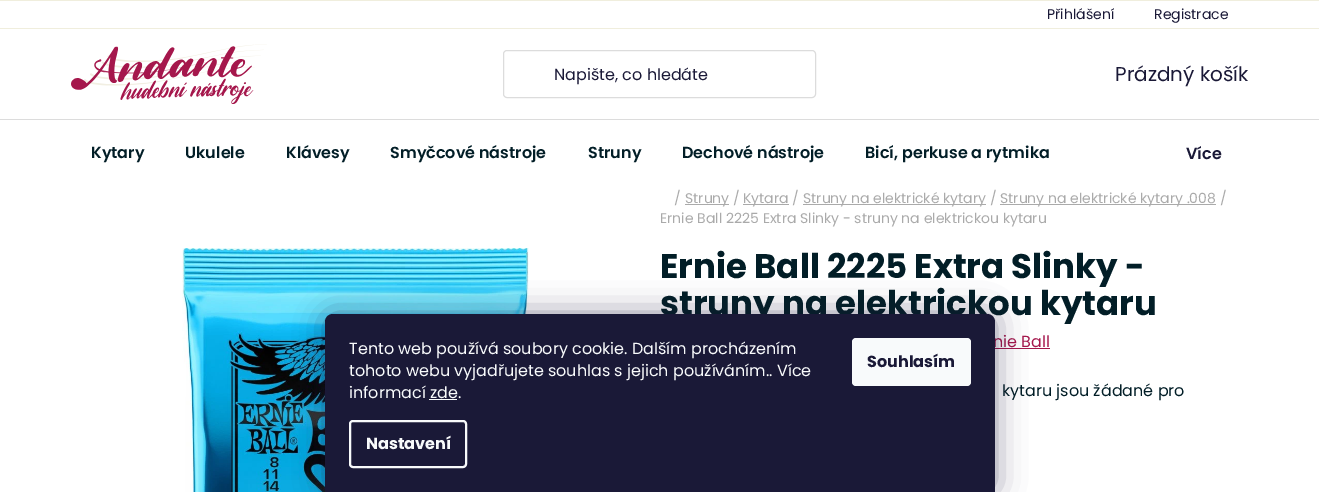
%!PS-Adobe-3.0
%%BoundingBox: 0 0 1334 492
%%LanguageLevel: 3
%%Pages: 1
%%EndComments
%%BeginProlog
/m { moveto } bind def
/l { lineto } bind def
/c { curveto } bind def
/h { closepath } bind def
/f { fill } bind def
/S { stroke } bind def
/w { setlinewidth } bind def
/fn { [ exch dup neg 0 0 3 -1 roll 0 0 ] selectfont } def
/tx { moveto show } def
/bx { rectfill } def
/al { dup .setfillconstantalpha .setstrokeconstantalpha } def
/rr { 5 dict begin { /r /h /w /y /x } { exch def } forall
  x r add y moveto x w add y 2 copy h add r arct x w add y h add x 1 index r arct
  x y h add x y r arct x y 2 copy exch w add exch r arct closepath end } def
/sh { 12 dict begin { /a /b /q /h /w /y /x } { exch def } forall gsave /was 0 def
  9 -2 -9 { dup b mul 4 div /e exch def 1 sub .425 mul 2.718 exch exp 1 add a .99 .min exch div /now exch def
    1 1 now sub 1 was sub div sub al /was now def
    w h .min e 2 mul add 0 gt { x e sub y e sub w e 2 mul add h e 2 mul add
      q e add b .6 mul add w h .min 2 div e add .min 0 .max rr fill } if } for grestore end } def
/im { 5 dict begin { /h /w /y /x /name } { exch def } forall
  gsave x y translate w h scale
  w h 8 [w 0 0 h 0 0] name (r) file false 3 colorimage grestore end } def
%%EndProlog
%%BeginSetup
<< /PageSize [1334 492] /PageUsesTransparency true >> setpagedevice
%%EndSetup
%%Page: 1 1
0 .pushpdf14devicefilter
0 492 translate 1 -1 scale
4 setmiterlimit
1 setgray
0 0 1334 492 bx
0.941 0.933 0.867 setrgbcolor
0 0 1319 1 bx
0 28 1319 1 bx
/Poppins-Regular 14 fn
0.102 0.098 0.216 setrgbcolor
(Přihlášení) 1047 19 tx
(Registrace) 1154 19 tx
(image0.raw) 71 44 196 60 im
0.863 setgray
503.5 50.5 312 47 3.5 rr S
/Poppins-Regular 16 fn
0.102 0.098 0.216 setrgbcolor
(Napište, co hledáte) 554 80 tx
/Poppins-Regular 20 fn
(Prázdný košík) 1115 81 tx
0.863 setgray
0 119 1319 1 bx
/Poppins-SemiBold 16 fn
0.008 0.118 0.153 setrgbcolor
(Kytary) 91 158 tx
(Ukulele) 185 158 tx
(Klávesy) 286 158 tx
(Smyčcové nástroje) 390 158 tx
(Struny) 588 158 tx
(Dechové nástroje) 682 158 tx
(Bicí, perkuse a rytmika) 865 158 tx
0.102 0.098 0.216 setrgbcolor
(Více) 1186 159 tx
/Poppins-Regular 14 fn
0.667 setgray
(/) 674 203 tx
685 204 44 1 bx
(Struny /) 685 203 tx
743 204 46 1 bx
(Kytara /) 743 203 tx
803 204 183 1 bx
(Struny na elektrické kytary /) 803 203 tx
1000 204 216 1 bx
(Struny na elektrické kytary .008 /) 1000 203 tx
(Ernie Ball 2225 Extra Slinky - struny na elektrickou kytaru) 660 223 tx
(image1.raw) 182 248 347 244 im
/Poppins-Bold 34 fn
0.008 0.118 0.153 setrgbcolor
(Ernie Ball 2225 Extra Slinky -) 660 278 tx
(struny na elektrickou kytaru) 660 315 tx
/Poppins-Regular 16 fn
0.647 0.09 0.298 setrgbcolor
(nie Ball) 993 347 tx
995 348 55 1 bx
0.008 0.118 0.153 setrgbcolor
(kytaru jsou žádané pro) 1002 396 tx
0.106 0.098 0.224 setrgbcolor
325 314 670 178 8 15 0.5 sh
0.102 0.098 0.216 setrgbcolor
333 314 m 987 314 l 991.5 314 995 317.5 995 322 c 995 492 l 325 492 l 325 322 l 325 317.5 328.5 314 333 314 c h f
0.973 0.98 0.984 setrgbcolor
(Tento web používá soubory cookie. Dalším procházením) 349 354 tx
(tohoto webu vyjadřujete souhlas s jejich používáním.. Více) 349 376 tx
(informací zde.) 349 398 tx
429 399 28 1 bx
2 w
350 421 116 46 3 rr S
/Poppins-Bold 16 fn
(Nastavení) 366 449 tx
852 338 119 48 4 rr f
0.102 0.098 0.216 setrgbcolor
(Souhlasím) 867 367 tx
.poppdf14devicefilter showpage
%%EOF
